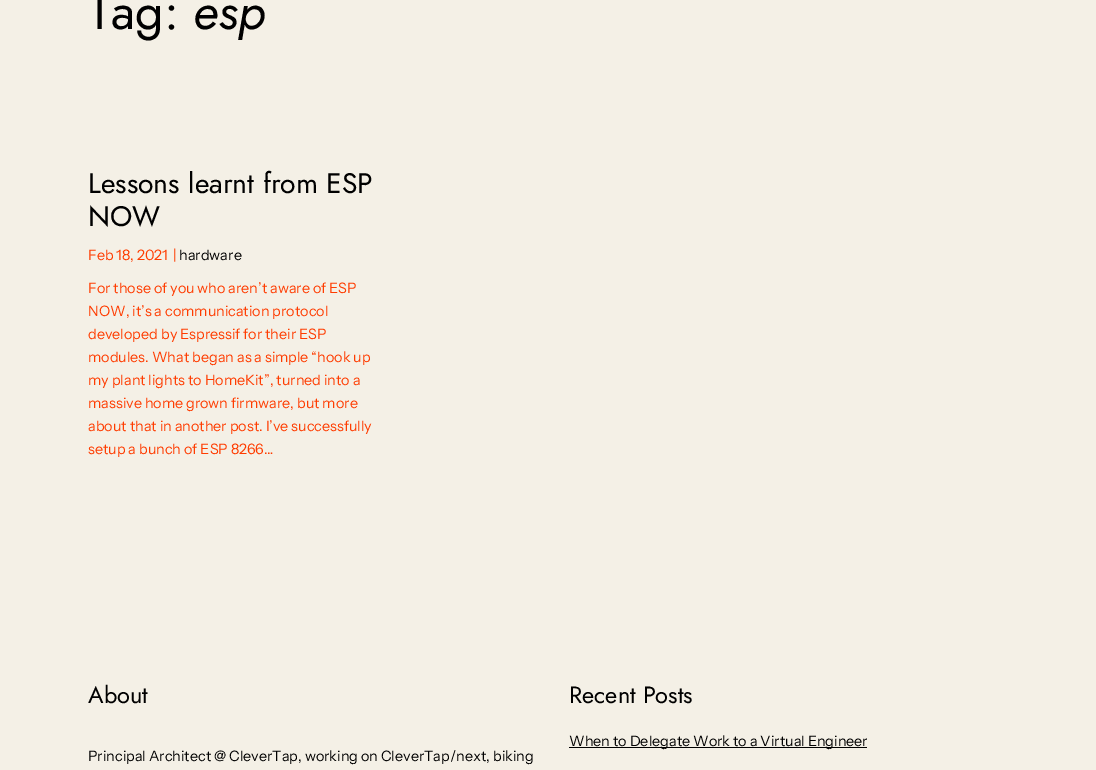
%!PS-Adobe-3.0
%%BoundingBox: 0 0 1096 770
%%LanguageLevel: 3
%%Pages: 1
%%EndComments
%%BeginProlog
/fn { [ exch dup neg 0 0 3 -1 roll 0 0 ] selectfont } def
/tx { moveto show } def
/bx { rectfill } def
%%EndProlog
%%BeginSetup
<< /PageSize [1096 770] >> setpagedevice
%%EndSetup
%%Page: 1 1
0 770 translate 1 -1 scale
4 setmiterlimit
0.957 0.941 0.902 setrgbcolor
0 0 1096 770 bx
/Jost-Regular 50 fn
0 setgray
(Tag:) 88 29 tx
/Jost-Italic 50 fn
(esp) 193 29 tx
/Jost-Regular 28.25 fn
(Lessons learnt from ESP) 88 193 tx
(NOW) 88 226 tx
/InstrumentSans-Regular 14.4 fn
1 0.235 0 setrgbcolor
(Feb 18, 2021) 88 260 tx
(|) 173 260 tx
0 setgray
(hardware) 179 260 tx
1 0.235 0 setrgbcolor
(For those of you who aren’t aware of ESP) 88 293 tx
(NOW, it’s a communication protocol) 88 316 tx
(developed by Espressif for their ESP) 88 339 tx
(modules. What began as a simple “hook up) 88 362 tx
(my plant lights to HomeKit”, turned into a) 88 385 tx
(massive home grown firmware, but more) 88 408 tx
(about that in another post. I’ve successfully) 88 431 tx
(setup a bunch of ESP 8266…) 88 454 tx
/Jost-Regular 23.5 fn
0 setgray
(About) 88 703 tx
/InstrumentSans-Regular 14.4 fn
(Principal Architect @ CleverTap, working on CleverTap/next, biking) 88 761 tx
/Jost-Regular 23.5 fn
(Recent Posts) 569 703 tx
569 747 298 1 bx
/InstrumentSans-Regular 14.4 fn
(When to Delegate Work to a Virtual Engineer) 569 746 tx
showpage
%%EOF
